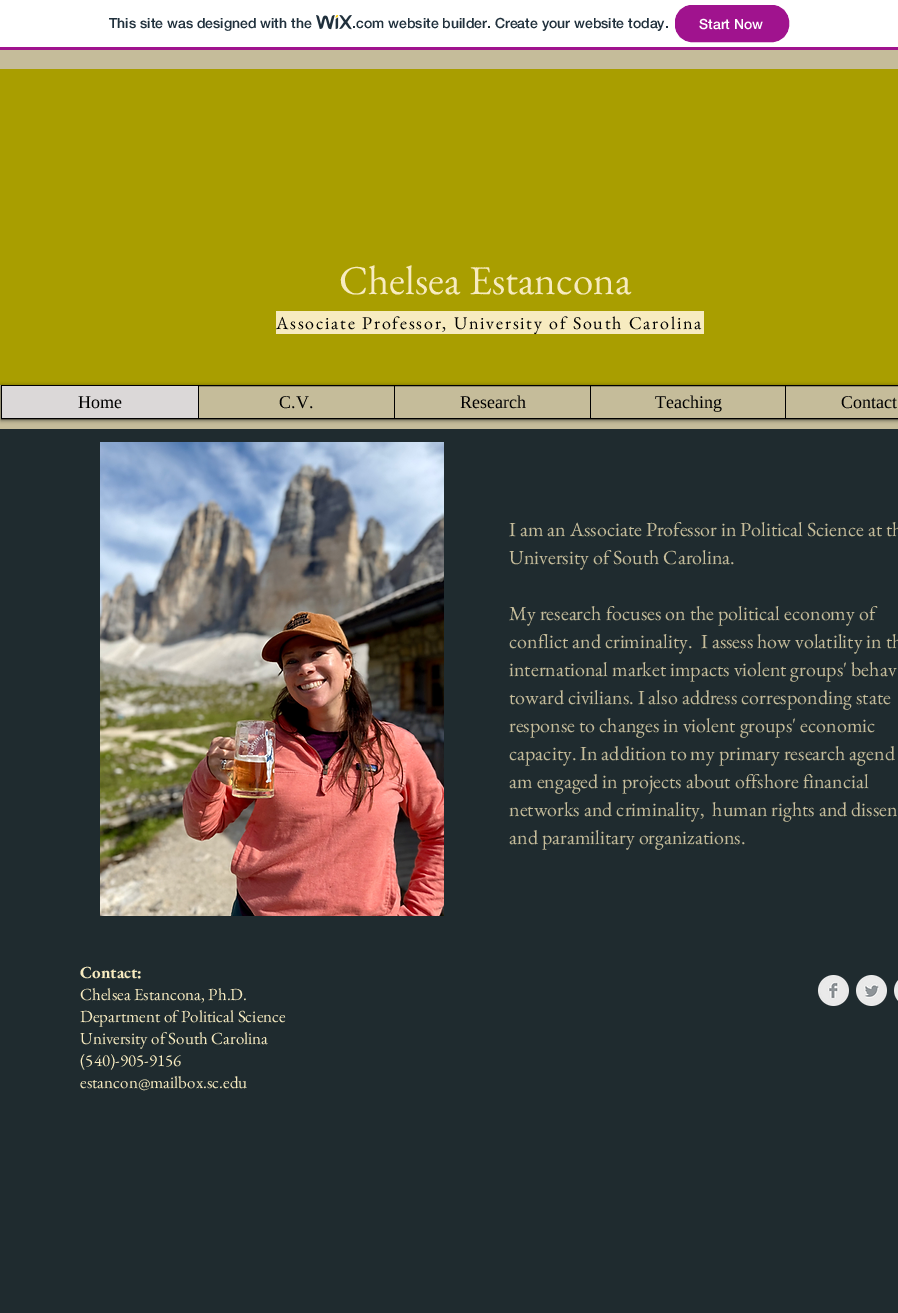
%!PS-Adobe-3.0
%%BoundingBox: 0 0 898 1313
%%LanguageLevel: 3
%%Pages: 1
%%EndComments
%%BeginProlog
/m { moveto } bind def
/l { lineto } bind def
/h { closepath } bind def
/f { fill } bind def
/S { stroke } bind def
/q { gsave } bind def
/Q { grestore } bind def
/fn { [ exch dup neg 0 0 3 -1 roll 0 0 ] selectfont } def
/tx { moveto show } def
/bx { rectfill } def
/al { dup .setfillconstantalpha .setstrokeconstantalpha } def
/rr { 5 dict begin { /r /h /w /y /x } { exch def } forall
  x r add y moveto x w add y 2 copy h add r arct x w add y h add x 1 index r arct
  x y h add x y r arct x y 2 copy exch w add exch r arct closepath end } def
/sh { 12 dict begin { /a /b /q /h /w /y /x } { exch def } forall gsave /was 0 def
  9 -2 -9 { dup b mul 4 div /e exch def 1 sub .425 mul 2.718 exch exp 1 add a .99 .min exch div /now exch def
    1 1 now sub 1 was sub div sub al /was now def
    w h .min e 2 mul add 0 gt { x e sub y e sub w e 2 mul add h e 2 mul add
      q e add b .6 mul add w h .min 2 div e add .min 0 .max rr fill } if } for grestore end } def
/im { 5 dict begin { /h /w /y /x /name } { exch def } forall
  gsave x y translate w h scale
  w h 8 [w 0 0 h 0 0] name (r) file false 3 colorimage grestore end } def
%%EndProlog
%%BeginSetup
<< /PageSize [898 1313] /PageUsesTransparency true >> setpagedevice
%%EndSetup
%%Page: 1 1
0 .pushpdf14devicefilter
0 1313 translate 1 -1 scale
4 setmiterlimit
1 setgray
0 0 898 1313 bx
0.627 0.075 0.557 setrgbcolor
0 47 898 3 bx
/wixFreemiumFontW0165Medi-Medium 14 fn
0.125 0.188 0.235 setrgbcolor
(This site was designed with the) 109 28 tx
(image0.raw) 316 15 36 15 im
(.com website builder. Create your website today.) 352 28 tx
0.627 0.075 0.557 setrgbcolor
675.5 5.5 113 36 16.5 rr q f Q
S
1 setgray
(Start Now) 699 29 tx
0.773 0.737 0.604 setrgbcolor
0 50 898 379 bx
0.663 0.62 0 setrgbcolor
0 69 898 316 bx
/EBGaramond-Regular 41 fn
0.969 0.922 0.753 setrgbcolor
(Chelsea Estancona) 339 294 tx
276 311 428 23 bx
/EBGaramond-Regular 18 fn
0 setgray
276 329 m 1.8 0 (Associate Professor, University of South Carolina) ashow
q
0 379 m 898 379 l 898 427 l 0 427 l h 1 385 m 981 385 l 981 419 l 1 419 l h eoclip newpath
1 386 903 34 0 2 0.6 sh
Q
1.5 385.5 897 33 rectstroke
0.859 0.847 0.847 setrgbcolor
2 386 196 32 bx
/LiberationSerif-Regular 18 fn
0 setgray
(Home) 78 408 tx
198 386 1 32 bx
(C.V.) 279 408 tx
394 386 1 32 bx
(Research) 460 408 tx
590 386 1 32 bx
(Teaching) 655 408 tx
785 386 1 32 bx
(Contact) 841 408 tx
0.122 0.169 0.184 setrgbcolor
0 429 898 884 bx
(image1.raw) 100 442 344 474 im
/EBGaramond-Regular 20 fn
0.773 0.737 0.604 setrgbcolor
(I am an Associate Professor in Political Science at th) 509 536 tx
(University of South Carolina.) 509 564 tx
(My research focuses on the political economy of) 509 620 tx
(conflict and criminality.  I assess how volatility in th) 509 648 tx
(international market impacts violent groups' behav) 509 676 tx
(toward civilians. I also address corresponding state) 509 704 tx
(response to changes in violent groups' economic) 509 732 tx
(capacity. In addition to my primary research agend) 509 760 tx
(am engaged in projects about offshore financial) 509 788 tx
(networks and criminality,  human rights and dissen) 509 816 tx
(and paramilitary organizations.) 509 844 tx
/EBGaramond-Bold 17 fn
0.969 0.922 0.753 setrgbcolor
(Contact:) 80 978 tx
/EBGaramond-Regular 17 fn
(Chelsea Estancona, Ph.D.) 80 1000 tx
(Department of Political Science) 80 1022 tx
(University of South Carolina) 80 1044 tx
(\(540\)-905-9156) 80 1066 tx
(estancon@mailbox.sc.edu) 80 1088 tx
(image2.raw) 818 975 31 31 im
(image3.raw) 856 975 31 31 im
(image4.raw) 894 980 4 21 im
.poppdf14devicefilter showpage
%%EOF
